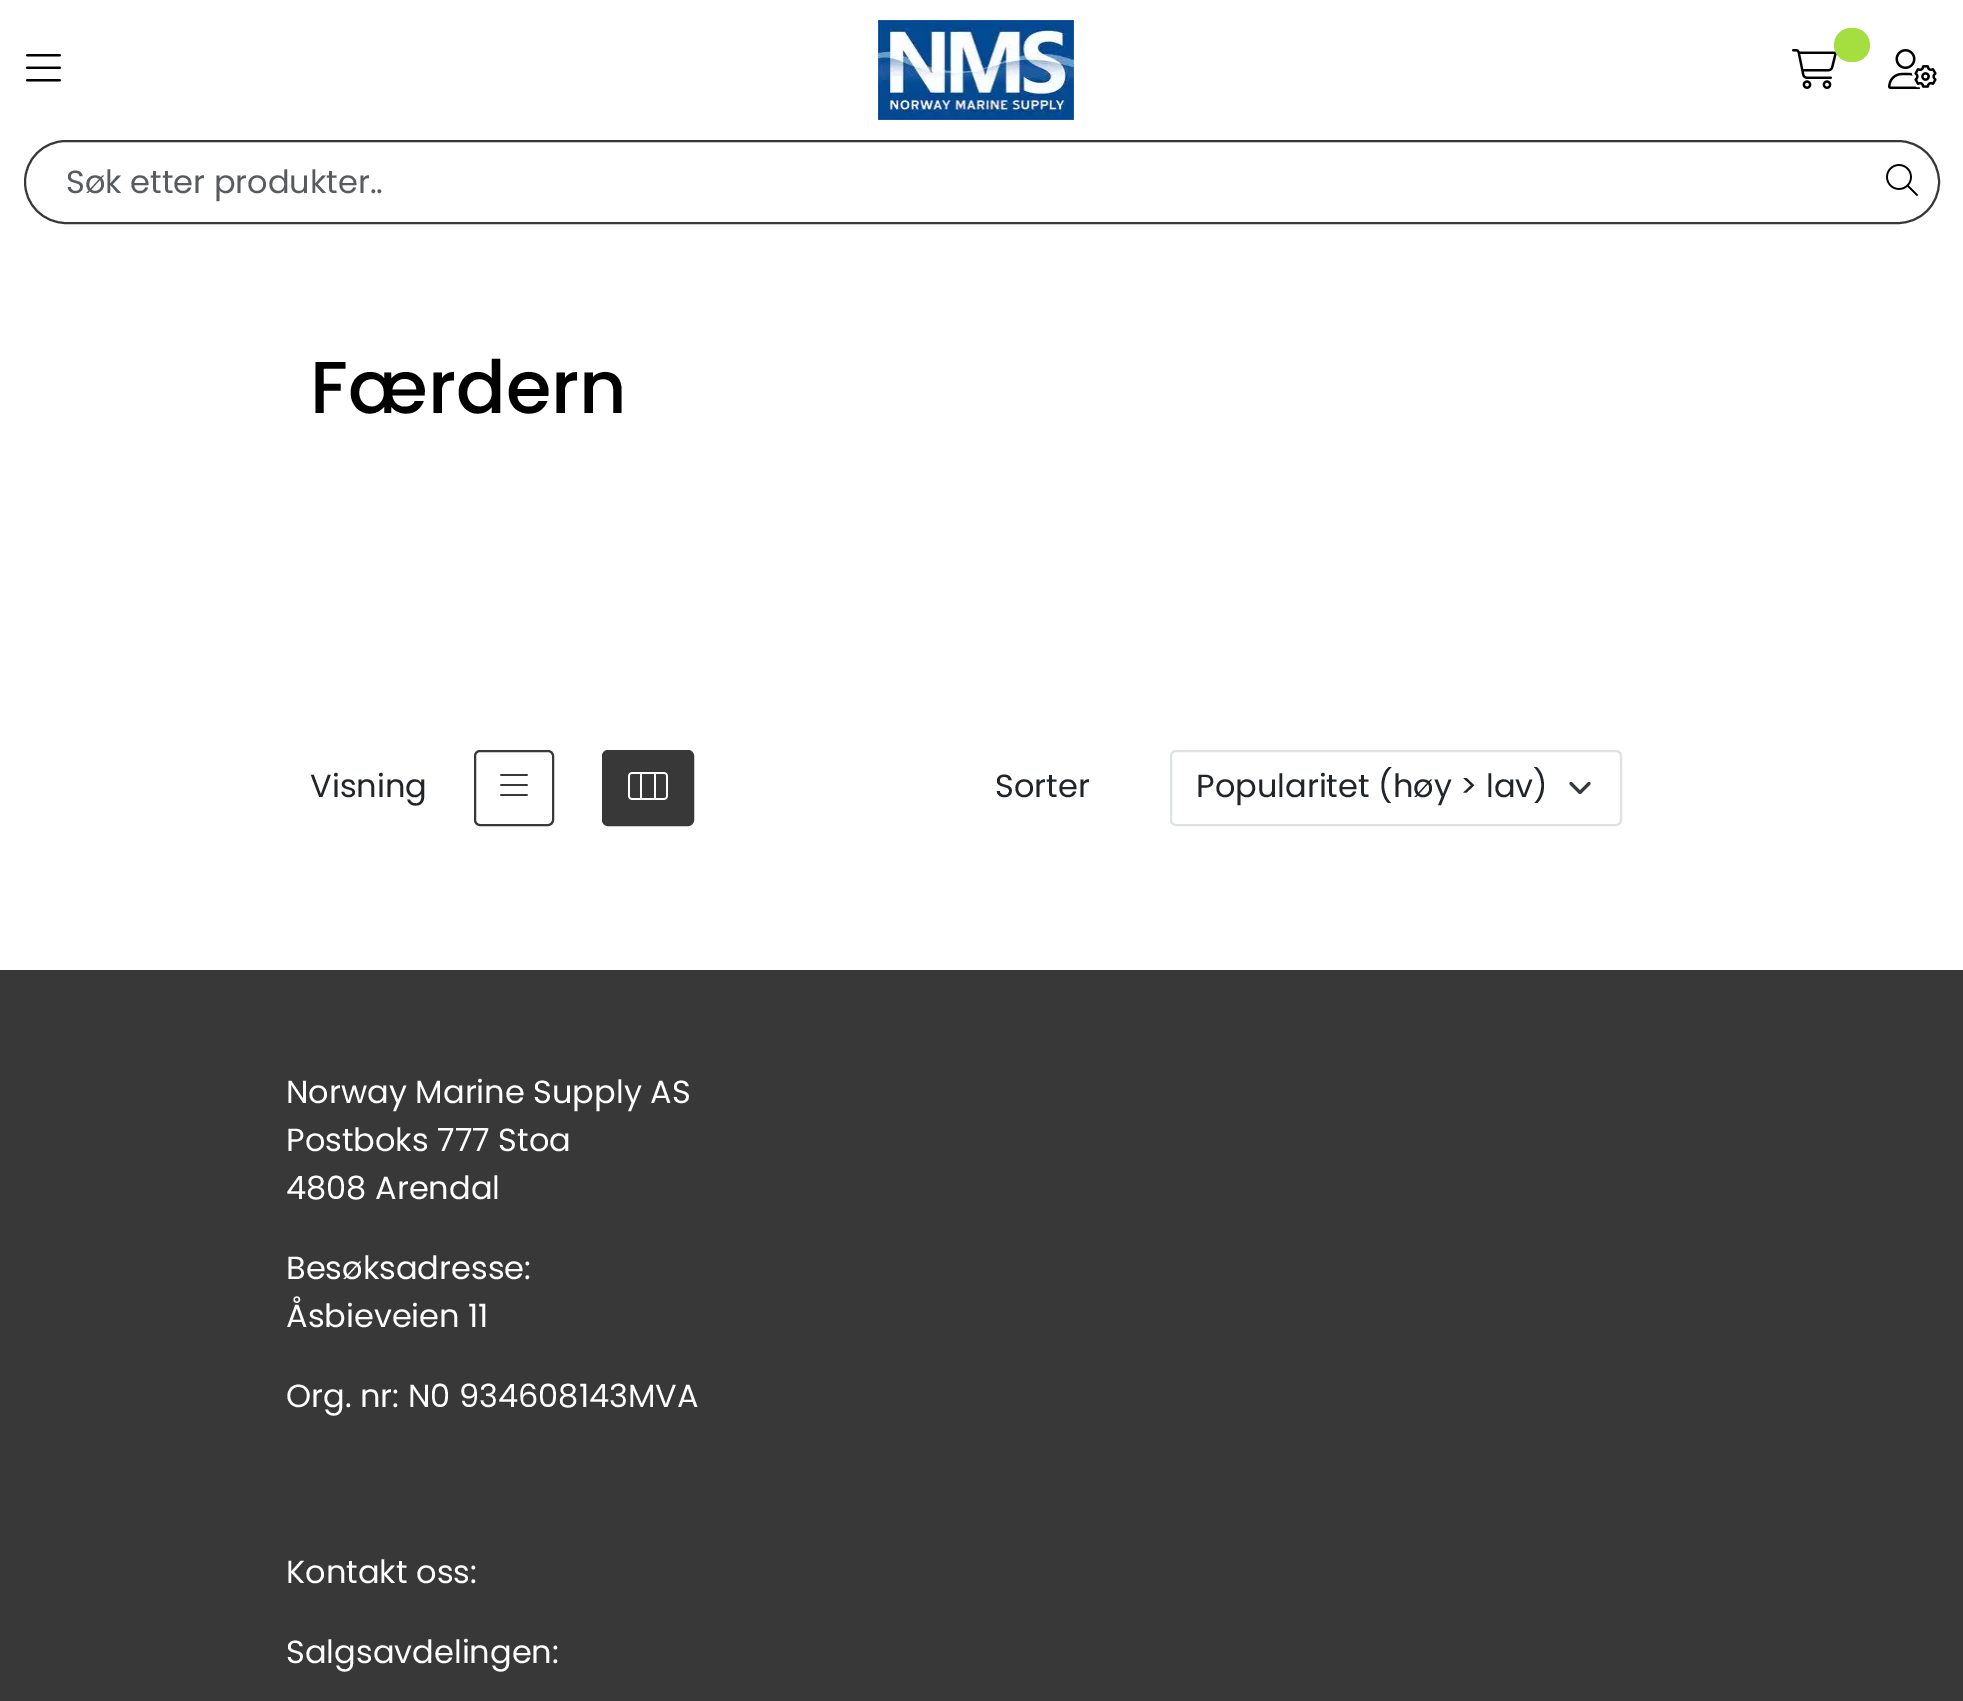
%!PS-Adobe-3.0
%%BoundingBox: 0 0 1963 1701
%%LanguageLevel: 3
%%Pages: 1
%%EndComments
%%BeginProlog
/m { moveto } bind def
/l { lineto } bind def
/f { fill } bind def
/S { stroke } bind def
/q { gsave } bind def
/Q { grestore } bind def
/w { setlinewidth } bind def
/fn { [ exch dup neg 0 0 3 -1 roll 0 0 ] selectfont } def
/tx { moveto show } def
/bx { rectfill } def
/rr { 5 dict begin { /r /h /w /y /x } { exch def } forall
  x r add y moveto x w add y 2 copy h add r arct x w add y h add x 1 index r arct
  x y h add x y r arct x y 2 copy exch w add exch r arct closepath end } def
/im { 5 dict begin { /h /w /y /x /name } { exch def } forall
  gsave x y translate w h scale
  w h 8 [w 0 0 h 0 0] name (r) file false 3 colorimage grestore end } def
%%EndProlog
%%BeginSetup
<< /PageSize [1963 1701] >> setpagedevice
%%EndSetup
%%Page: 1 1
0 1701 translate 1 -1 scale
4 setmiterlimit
1 setgray
0 0 1963 1701 bx
(image0.raw) 26 54 35 28 im
(image1.raw) 878 20 196 100 im
(image2.raw) 1792 49 45 40 im
0.643 0.875 0.247 setrgbcolor
1834 28 36 34 17 rr f
(image3.raw) 1888 49 49 40 im
0.22 setgray
2 w
25 141 1914 82 41 rr S
/Poppins-Regular 32 fn
0.349 0.361 0.373 setrgbcolor
(Søk etter produkter..) 66 193 tx
(image4.raw) 1886 164 32 32 im
/Poppins-Medium 73.5 fn
0 setgray
(Færdern) 310 413 tx
/Poppins-Regular 32 fn
0.129 0.145 0.161 setrgbcolor
(Visning) 310 797 tx
0.22 setgray
475 751 78 74 5 rr S
(image5.raw) 500 774 28 22 im
603 751 90 74 5 rr q f Q
S
(image6.raw) 628 772 40 28 im
0.129 0.145 0.161 setrgbcolor
(Sorter) 995 797 tx
0.204 0.227 0.251 setrgbcolor
3 w
1 setlinecap
1 setlinejoin
1571 783.5 m 1580 792.5 l 1589 783.5 l S
0.871 0.886 0.902 setrgbcolor
2 w
0 setlinecap
0 setlinejoin
1171 751 450 74 5 rr S
0.129 0.145 0.161 setrgbcolor
(Popularitet \(høy > lav\)) 1196 797 tx
0.22 setgray
0 970 1963 731 bx
1 setgray
(Norway Marine Supply AS) 286 1103 tx
(Postboks 777 Stoa) 286 1151 tx
(4808 Arendal) 286 1199 tx
(Besøksadresse:) 286 1279 tx
(Åsbieveien 11) 286 1327 tx
(Org. nr: N0 934608143MVA) 286 1407 tx
(Kontakt oss:) 286 1583 tx
(Salgsavdelingen:) 286 1663 tx
showpage
%%EOF
